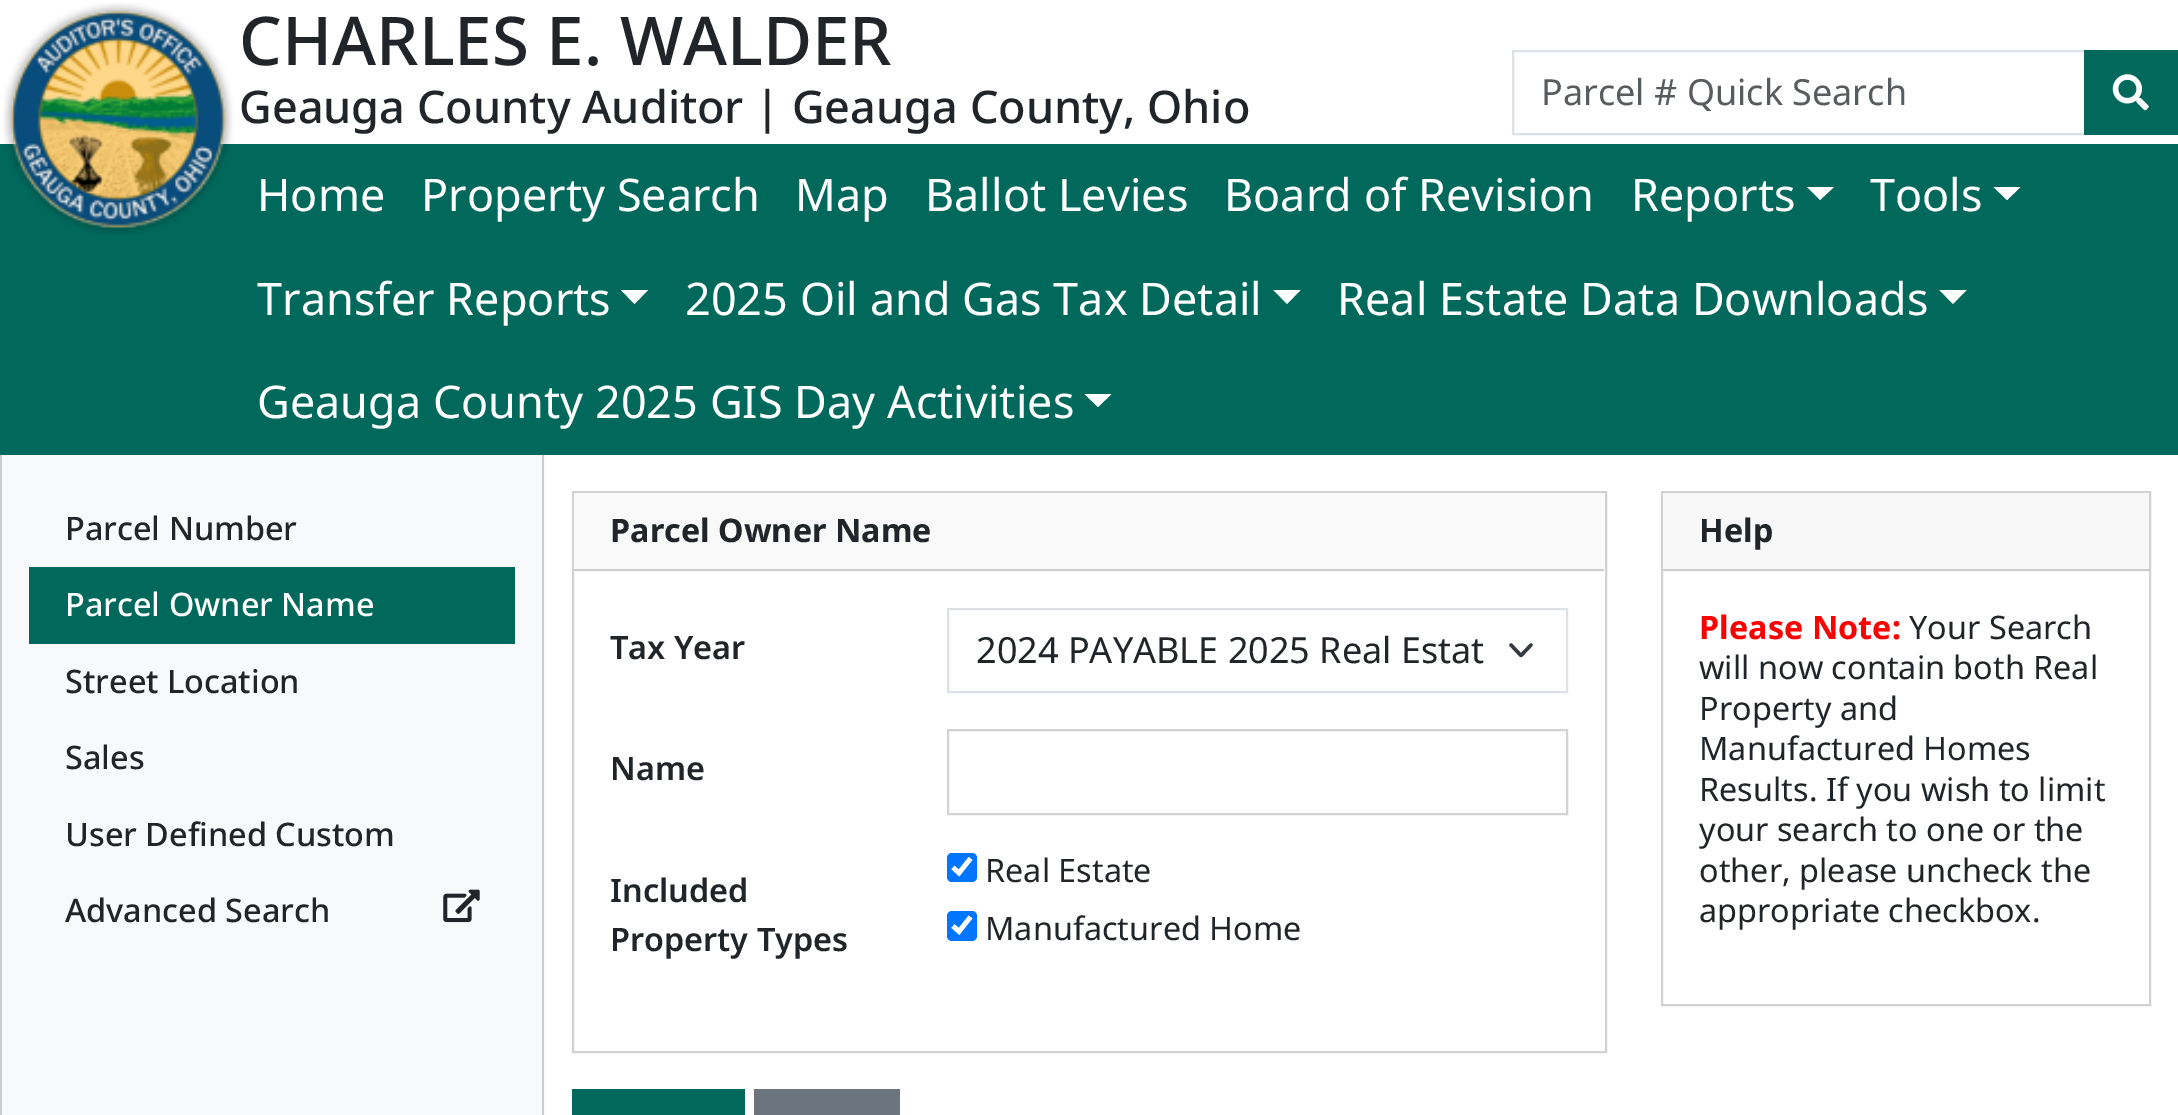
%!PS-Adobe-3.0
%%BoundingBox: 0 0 2178 1115
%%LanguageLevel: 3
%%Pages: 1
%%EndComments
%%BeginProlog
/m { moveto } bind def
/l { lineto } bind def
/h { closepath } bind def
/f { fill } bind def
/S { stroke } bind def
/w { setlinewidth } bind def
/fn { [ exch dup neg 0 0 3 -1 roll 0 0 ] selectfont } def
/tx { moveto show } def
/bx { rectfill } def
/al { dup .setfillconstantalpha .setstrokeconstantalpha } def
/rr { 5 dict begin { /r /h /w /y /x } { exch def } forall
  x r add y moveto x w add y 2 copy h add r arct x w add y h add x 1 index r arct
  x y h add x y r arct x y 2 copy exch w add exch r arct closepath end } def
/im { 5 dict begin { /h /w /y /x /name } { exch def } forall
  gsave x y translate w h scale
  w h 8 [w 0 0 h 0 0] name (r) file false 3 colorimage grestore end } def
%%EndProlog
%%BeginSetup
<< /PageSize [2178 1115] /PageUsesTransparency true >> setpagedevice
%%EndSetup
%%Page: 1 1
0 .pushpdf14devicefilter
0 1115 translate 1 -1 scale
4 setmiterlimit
1 setgray
0 0 2178 1115 bx
0.973 0.976 0.98 setrgbcolor
0 455 545 660 bx
0.18 al
0 setgray
544 454 m 544 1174 l 542 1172 l 542 454 l h f
0 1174 m 0 454 l 2 454 l 2 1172 l h f
1 al
0 0.412 0.361 setrgbcolor
0 144 2178 311 bx
(image0.raw) 3 3 230 232 im
/NotoSans-Medium 67.25 fn
0.129 0.145 0.161 setrgbcolor
(CHARLES E. WALDER) 239 65 tx
/NotoSans-Medium 45 fn
(Geauga County Auditor | Geauga County, Ohio) 239 123 tx
0.871 0.886 0.902 setrgbcolor
2 w
1513 51 572 83 rectstroke
/NotoSans-Regular 36 fn
0.349 0.361 0.373 setrgbcolor
(Parcel # Quick Search) 1541 105 tx
0 0.412 0.361 setrgbcolor
2084 50 94 85 bx
(image1.raw) 2112 74 37 37 im
/NotoSans-Regular 45 fn
1 setgray
(Home) 257 211 tx
(Property Search) 421 211 tx
(Map) 795 211 tx
(Ballot Levies) 925 211 tx
(Board of Revision) 1224 211 tx
(Reports) 1631 211 tx
1807 187 m 1834 187 l 1820 200 l h f
(Tools) 1870 211 tx
1993.5 187 m 2020.5 187 l 2007 200 l h f
(Transfer Reports) 257 315 tx
621 290 m 648 290 l 634.5 304 l h f
(2025 Oil and Gas Tax Detail) 685 315 tx
1273.5 290 m 1300.5 290 l 1287 304 l h f
(Real Estate Data Downloads) 1337 315 tx
1939.5 290 m 1966.5 290 l 1953 304 l h f
(Geauga County 2025 GIS Day Activities) 257 418 tx
1084.5 394 m 1111.5 394 l 1098 407 l h f
/NotoSans-Medium 32.4 fn
0.129 0.145 0.161 setrgbcolor
(Parcel Number) 65 540 tx
0 0.412 0.361 setrgbcolor
29 567 486 77 bx
1 setgray
(Parcel Owner Name) 65 616 tx
0.129 0.145 0.161 setrgbcolor
(Street Location) 65 693 tx
(Sales) 65 769 tx
(User Defined Custom) 65 846 tx
(Advanced Search) 65 922 tx
(image2.raw) 443 889 37 34 im
0.824 setgray
573 492 1033 560 rectstroke
0.976 setgray
574 493 1030 79 bx
0.804 setgray
574 569 1030 2 bx
/NotoSans-Bold 32.4 fn
0.129 0.145 0.161 setrgbcolor
(Parcel Owner Name) 610 542 tx
/NotoSans-SemiBold 32.4 fn
(Tax Year) 610 659 tx
0.204 0.227 0.251 setrgbcolor
3.4 w
1 setlinecap
1 setlinejoin
1511 645 m 1521 655.5 l 1531 645 l S
0.871 0.886 0.902 setrgbcolor
2 w
0 setlinecap
0 setlinejoin
948 609 619 83 rectstroke
/NotoSans-Regular 36 fn
0.129 0.145 0.161 setrgbcolor
(2024 PAYABLE 2025 Real Estat) 976 663 tx
/NotoSans-SemiBold 32.4 fn
(Name) 610 780 tx
0.827 0.827 0.831 setrgbcolor
948 730 619 84 rectstroke
0.129 0.145 0.161 setrgbcolor
(Included) 610 902 tx
(Property Types) 610 951 tx
0 0.459 1 setrgbcolor
947 853 30 29 5 rr f
1 setgray
4.7 w
953 867.5 m 959 873 l 970.5 858.5 l S
/NotoSans-Regular 32.4 fn
0.129 0.145 0.161 setrgbcolor
(Real Estate) 985 882 tx
0 0.459 1 setrgbcolor
947 911 30 30 5 rr f
1 setgray
953 926 m 959 931.5 l 970.5 917 l S
0.129 0.145 0.161 setrgbcolor
(Manufactured Home) 985 940 tx
0 0.412 0.361 setrgbcolor
572 1089 173 26 bx
0.424 0.459 0.49 setrgbcolor
754 1089 146 26 bx
0.824 setgray
2 w
1662 492 488 513 rectstroke
0.973 0.973 0.976 setrgbcolor
1663 493 486 79 bx
0.8 0.8 0.804 setrgbcolor
1663 569 486 2 bx
/NotoSans-Bold 32.4 fn
0.129 0.145 0.161 setrgbcolor
(Help) 1699 542 tx
1 0 0 setrgbcolor
(Please Note:) 1699 639 tx
/NotoSans-Regular 32.4 fn
0.129 0.145 0.161 setrgbcolor
(Your Search) 1909 639 tx
(will now contain both Real) 1699 679 tx
(Property and) 1699 720 tx
(Manufactured Homes) 1699 760 tx
(Results. If you wish to limit) 1699 801 tx
(your search to one or the) 1699 841 tx
(other, please uncheck the) 1699 882 tx
(appropriate checkbox.) 1699 922 tx
.poppdf14devicefilter showpage
%%EOF
